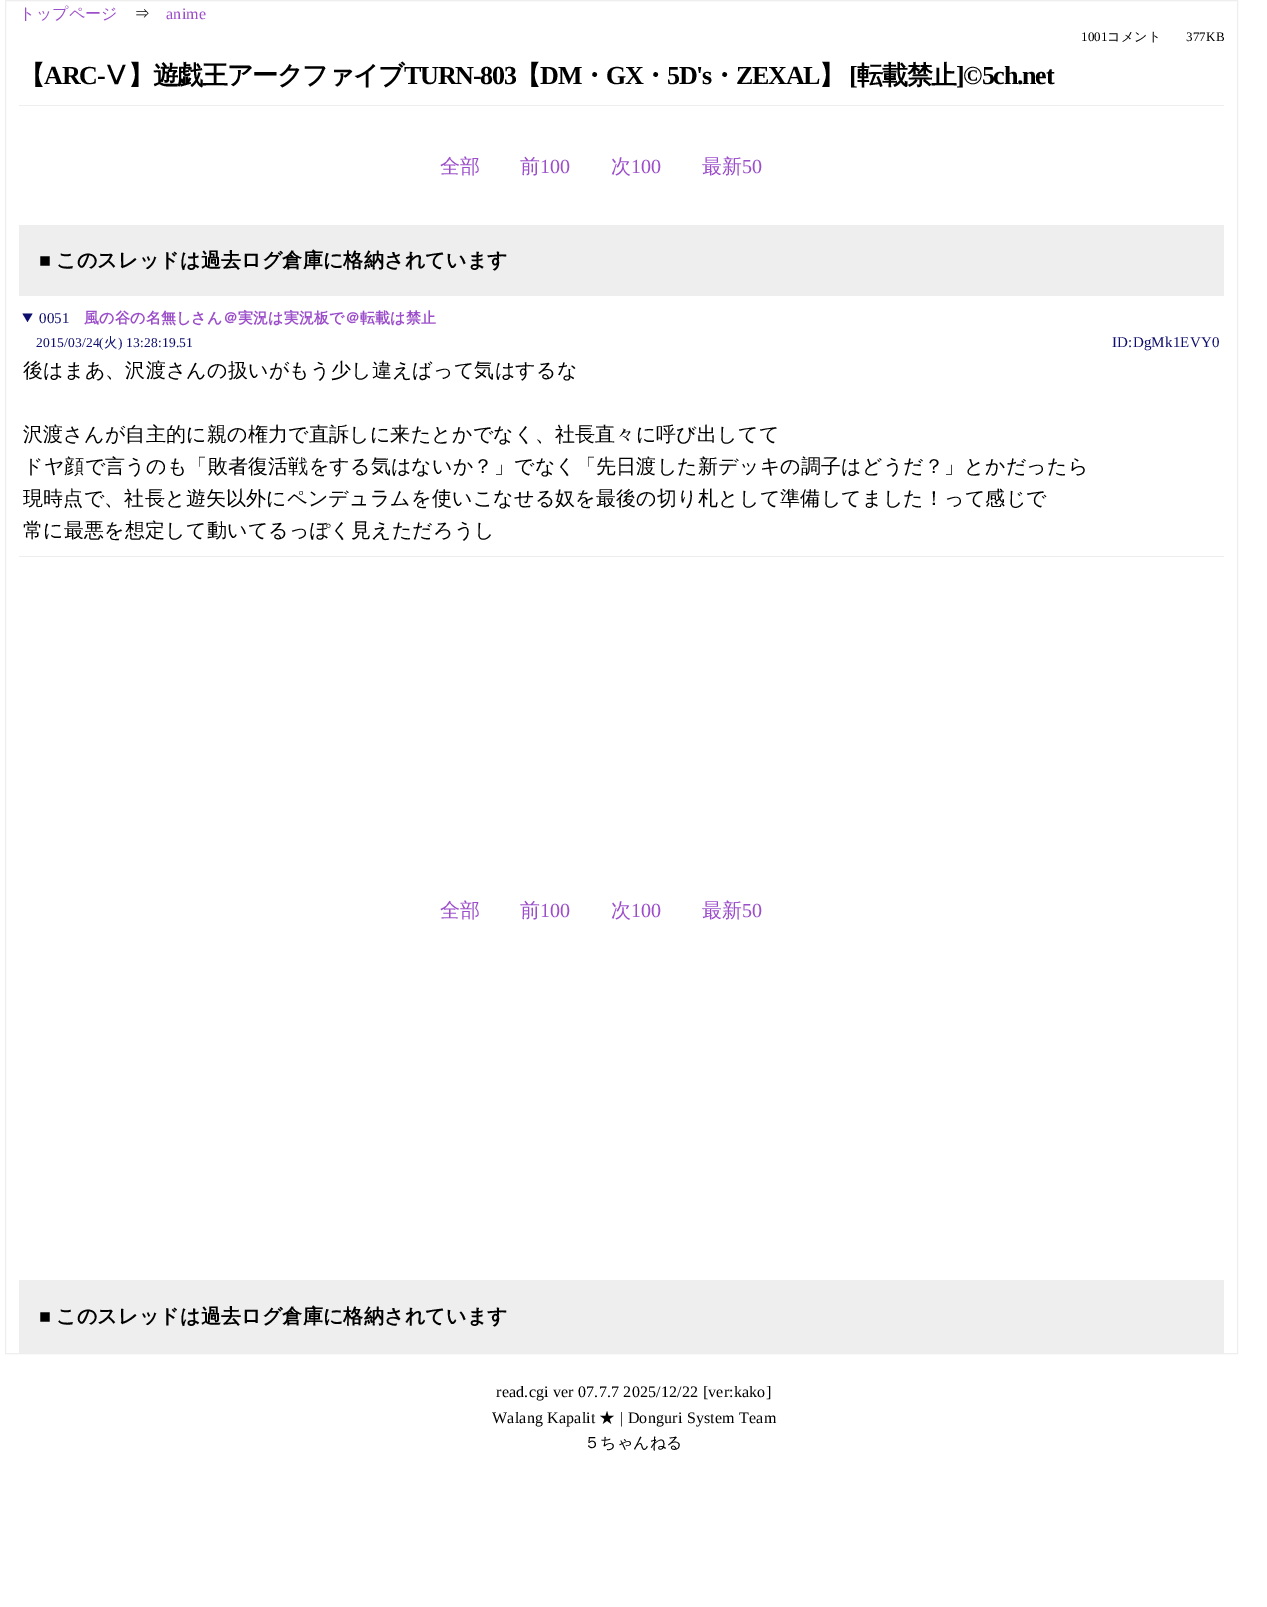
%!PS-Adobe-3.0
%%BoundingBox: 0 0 1267 1607
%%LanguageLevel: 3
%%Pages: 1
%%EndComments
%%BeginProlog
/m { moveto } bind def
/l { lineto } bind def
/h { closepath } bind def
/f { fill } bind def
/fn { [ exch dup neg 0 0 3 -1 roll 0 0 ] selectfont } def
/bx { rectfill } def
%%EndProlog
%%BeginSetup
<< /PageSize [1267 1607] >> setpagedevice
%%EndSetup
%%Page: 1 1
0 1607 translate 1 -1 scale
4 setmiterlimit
1 setgray
0 0 1267 1607 bx
0.933 setgray
5.5 0.5 1232 1353 rectstroke
/WenQuanYiZenHei-Medium 16 fn
0.608 0.302 0.792 setrgbcolor
19 19 m 0.2 0 (トップページ) ashow
0 setgray
134 19 m 0.2 0 (⇒) ashow
/LiberationSerif-Regular 16 fn
0.608 0.302 0.792 setrgbcolor
166 19 m 0.2 0 (anime) ashow
/LiberationSerif-Regular 13 fn
0 setgray
1081 41 m 0.2 0 (1001) ashow
/WenQuanYiZenHei-Medium 13 fn
1107 41 m 0.2 0 (コメント) ashow
/LiberationSerif-Regular 13 fn
1186 41 m 0.2 0 (377KB) ashow
0.933 setgray
19 105 1205 1 bx
/WenQuanYiZenHei-Bold 26 fn
0 setgray
19 84 m -1.25 0 (【) ashow
/LiberationSerif-Bold 26 fn
44 84 m -1.25 0 (ARC-) ashow
/WenQuanYiZenHei-Bold 26 fn
103 84 m -1.25 0 (Ⅴ】遊戯王アークファイブ) ashow
/LiberationSerif-Bold 26 fn
404 84 m -1.25 0 (TURN-803) ashow
/WenQuanYiZenHei-Bold 26 fn
515 84 m -1.25 0 (【) ashow
/LiberationSerif-Bold 26 fn
540 84 m -1.25 0 (DM) ashow
/WenQuanYiZenHei-Bold 26 fn
581 84 m -1.25 0 (・) ashow
/LiberationSerif-Bold 26 fn
606 84 m -1.25 0 (GX) ashow
/WenQuanYiZenHei-Bold 26 fn
642 84 m -1.25 0 (・) ashow
/LiberationSerif-Bold 26 fn
667 84 m -1.25 0 (5D's) ashow
/WenQuanYiZenHei-Bold 26 fn
711 84 m -1.25 0 (・) ashow
/LiberationSerif-Bold 26 fn
736 84 m -1.25 0 (ZEXAL) ashow
/WenQuanYiZenHei-Bold 26 fn
819 84 m -1.25 0 (】) ashow
/LiberationSerif-Bold 26 fn
849 84 m -1.25 0 ([) ashow
/WenQuanYiZenHei-Bold 26 fn
857 84 m -1.25 0 (転載禁止) ashow
/LiberationSerif-Bold 26 fn
956 84 m -1.25 0 (]©5ch.net) ashow
/WenQuanYiZenHei-Medium 20 fn
0.608 0.302 0.792 setrgbcolor
440 173 m 0.2 0 (全部) ashow
520 173 m 0.2 0 (前) ashow
/LiberationSerif-Regular 20 fn
540 173 m 0.2 0 (100) ashow
/WenQuanYiZenHei-Medium 20 fn
611 173 m 0.2 0 (次) ashow
/LiberationSerif-Regular 20 fn
631 173 m 0.2 0 (100) ashow
/WenQuanYiZenHei-Medium 20 fn
702 173 m 0.2 0 (最新) ashow
/LiberationSerif-Regular 20 fn
742 173 m 0.2 0 (50) ashow
0.933 setgray
19 225 1205 71 bx
/LiberationSerif-Bold 20 fn
0 setgray
39 267 m 0.2 0 (■) ashow
/WenQuanYiZenHei-Bold 20 fn
56 267 m 0.2 0 (このスレッドは過去ログ倉庫に格納されています) ashow
0.933 setgray
19 556 1205 1 bx
0.055 0.055 0.431 setrgbcolor
22.5 313.5 m 32.5 313.5 l 27.5 322 l h f
/LiberationSerif-Regular 15 fn
39 323 m 0.2 0 (0051) ashow
/WenQuanYiZenHei-Bold 15 fn
0.608 0.302 0.792 setrgbcolor
84 323 m 0.2 0 (風の谷の名無しさん＠実況は実況板で＠転載は禁止) ashow
/LiberationSerif-Regular 13.5 fn
0.055 0.055 0.431 setrgbcolor
36 347 m 0.2 0 (2015/03/24\() ashow
/WenQuanYiZenHei-Medium 13.5 fn
104 347 m 0.2 0 (火) ashow
/LiberationSerif-Regular 13.5 fn
118 347 m 0.2 0 (\) 13:28:19.51) ashow
/LiberationSerif-Regular 15 fn
1112 347 m 0.2 0 (ID:DgMk1EVY0) ashow
/WenQuanYiZenHei-Medium 20 fn
0 setgray
23 377 m 0.2 0 (後はまあ、沢渡さんの扱いがもう少し違えばって気はするな) ashow
23 441 m 0.2 0 (沢渡さんが自主的に親の権力で直訴しに来たとかでなく、社長直々に呼び出してて) ashow
23 473 m 0.2 0 (ドヤ顔で言うのも「敗者復活戦をする気はないか？」でなく「先日渡した新デッキの調子はどうだ？」とかだったら) ashow
23 505 m 0.2 0 (現時点で、社長と遊矢以外にペンデュラムを使いこなせる奴を最後の切り札として準備してました！って感じで) ashow
23 537 m 0.2 0 (常に最悪を想定して動いてるっぽく見えただろうし) ashow
0.608 0.302 0.792 setrgbcolor
440 917 m 0.2 0 (全部) ashow
520 917 m 0.2 0 (前) ashow
/LiberationSerif-Regular 20 fn
540 917 m 0.2 0 (100) ashow
/WenQuanYiZenHei-Medium 20 fn
611 917 m 0.2 0 (次) ashow
/LiberationSerif-Regular 20 fn
631 917 m 0.2 0 (100) ashow
/WenQuanYiZenHei-Medium 20 fn
702 917 m 0.2 0 (最新) ashow
/LiberationSerif-Regular 20 fn
742 917 m 0.2 0 (50) ashow
0.933 setgray
19 1280 1205 73 bx
/LiberationSerif-Bold 20 fn
0 setgray
39 1323 m 0.2 0 (■) ashow
/WenQuanYiZenHei-Bold 20 fn
56 1323 m 0.2 0 (このスレッドは過去ログ倉庫に格納されています) ashow
/LiberationSerif-Regular 16 fn
496 1397 m 0.2 0 (read.cgi ver 07.7.7 2025/12/22 [ver:kako]) ashow
492 1423 m 0.2 0 (Walang Kapalit) ashow
/WenQuanYiZenHei-Medium 16 fn
599 1423 m 0.2 0 (★) ashow
/LiberationSerif-Regular 16 fn
620 1423 m 0.2 0 (| Donguri System Team) ashow
/WenQuanYiZenHei-Medium 16 fn
584 1448 m 0.2 0 (５ちゃんねる) ashow
showpage
%%EOF
